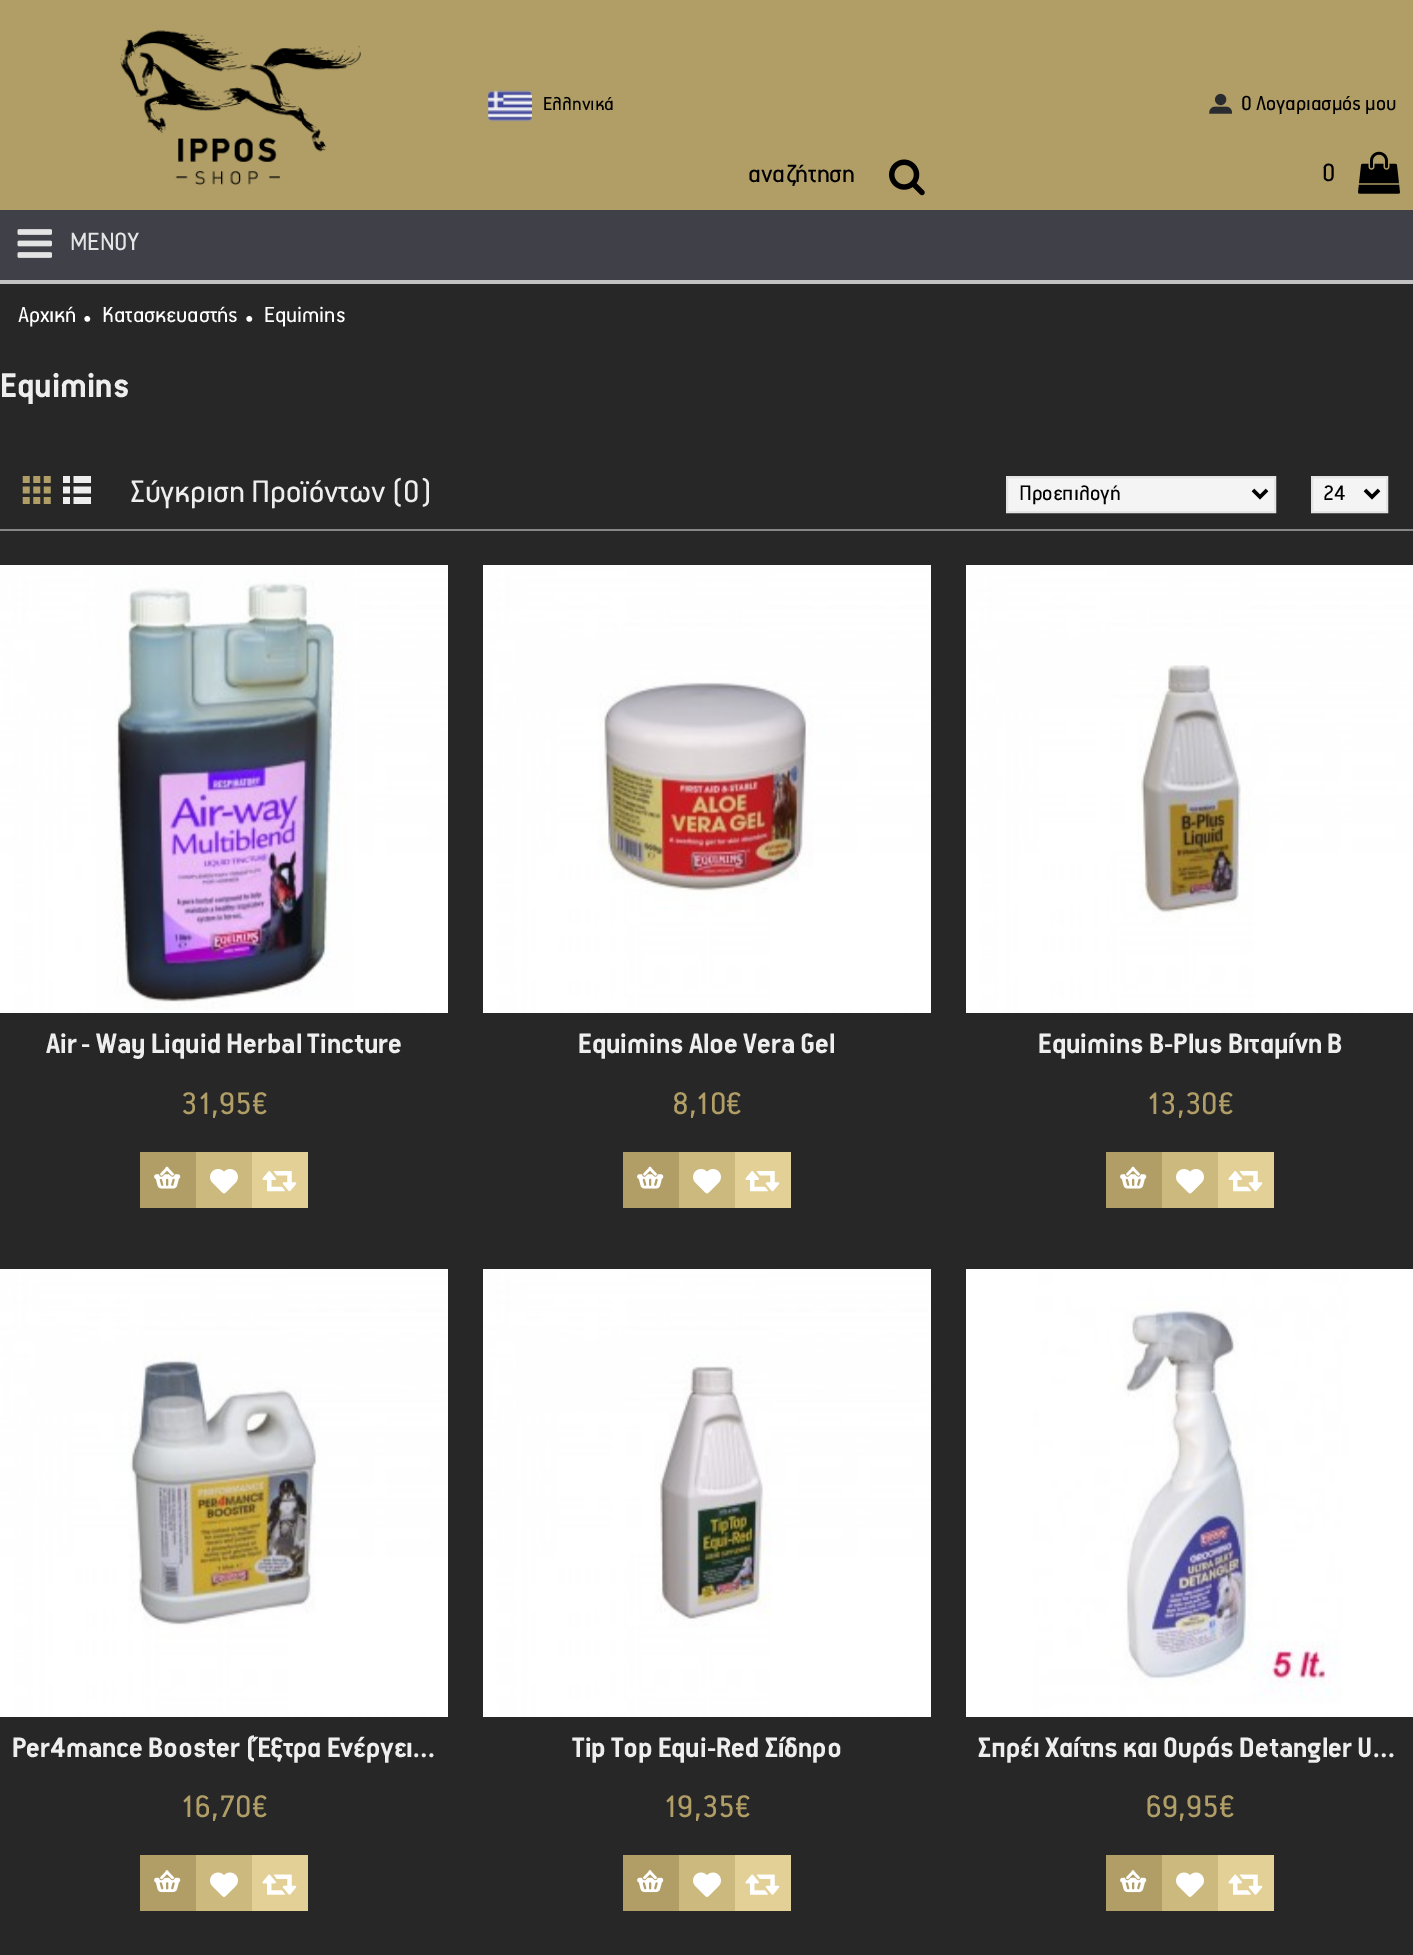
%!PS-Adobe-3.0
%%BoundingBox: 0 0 1413 1955
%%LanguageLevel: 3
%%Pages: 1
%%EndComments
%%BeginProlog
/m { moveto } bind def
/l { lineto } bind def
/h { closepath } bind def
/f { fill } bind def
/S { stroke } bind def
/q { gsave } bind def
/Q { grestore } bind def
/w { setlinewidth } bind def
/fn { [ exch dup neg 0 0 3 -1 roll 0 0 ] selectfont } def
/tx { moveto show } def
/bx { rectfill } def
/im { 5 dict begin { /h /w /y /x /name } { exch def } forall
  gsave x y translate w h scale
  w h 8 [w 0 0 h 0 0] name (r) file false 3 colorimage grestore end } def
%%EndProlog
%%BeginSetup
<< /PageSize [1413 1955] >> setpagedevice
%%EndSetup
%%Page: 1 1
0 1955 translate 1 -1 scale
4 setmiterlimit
0.153 setgray
0 0 1413 1955 bx
0.69 0.62 0.4 setrgbcolor
0 0 1413 210 bx
0.761 setgray
0 280 1413 4 bx
(image0.raw) 120 30 241 155 im
(image1.raw) 488 90 44 32 im
/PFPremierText-Regular 21 fn
0 setgray
(Ελληνικά) 543 110 tx
(image2.raw) 1209 93 23 21 im
/PFPremierText-Regular 22.75 fn
(O Λογαριασμός μου) 1241 110 tx
/PFPremierText-Regular 28 fn
(αναζήτηση) 748 182 tx
(image3.raw) 889 159 36 37 im
(0) 1322 181 tx
(image4.raw) 1358 151 42 43 im
0.247 0.251 0.282 setrgbcolor
0 210 1413 70 bx
(image5.raw) 17 229 35 29 im
0.894 setgray
(ΜΕΝΟΥ) 70 250 tx
/PFPremierText-Regular 24.5 fn
1 setgray
(Αρχική) 18 322 tx
/LiberationSerif-Regular 24.5 fn
(•) 83 327 tx
/PFPremierText-Regular 24.5 fn
(Κατασκευαστής) 102 322 tx
/LiberationSerif-Regular 24.5 fn
(•) 245 327 tx
/PFPremierText-Regular 24.5 fn
(Equimins) 264 322 tx
/PFPremierText-Bold 38.5 fn
0.933 setgray
(Equimins) 0 397 tx
0.525 setgray
0 529 1413 2 bx
(image6.raw) 22 476 29 28 im
(image7.raw) 63 476 28 28 im
/PFPremierText-Regular 35 fn
0.933 setgray
(Σύγκριση Προϊόντων \(0\)) 130 502 tx
0.957 setgray
1007 477 m 1275 477 l 1275 512 l 1007 512 l h q f Q
0.894 setgray
2 w
S
0 setgray
3.5 w
1253 490 m 1260 497 l 1267 490 l S
/PFPremierText-Regular 23.5 fn
(Προεπιλογή) 1019 500 tx
0.957 setgray
1312 477 m 1387 477 l 1387 512 l 1312 512 l h q f Q
0.894 setgray
2 w
S
0 setgray
3.5 w
1365 490 m 1372 497 l 1379 490 l S
(24) 1323 500 tx
(image8.raw) 0 565 448 448 im
/PFPremierText-Bold 31.5 fn
0.933 setgray
(Air - Way Liquid Herbal Tincture) 46 1053 tx
/PFPremierText-Regular 35 fn
0.69 0.62 0.4 setrgbcolor
(31,95€) 181 1114 tx
140 1152 56 56 bx
(image9.raw) 154 1166 27 23 im
0.8 0.725 0.494 setrgbcolor
196 1152 56 56 bx
(image10.raw) 210 1169 28 25 im
0.886 0.816 0.588 setrgbcolor
252 1152 56 56 bx
(image11.raw) 262 1171 35 21 im
(image12.raw) 483 565 448 448 im
/PFPremierText-Bold 31.5 fn
0.933 setgray
(Equimins Aloe Vera Gel) 578 1053 tx
/PFPremierText-Regular 35 fn
0.69 0.62 0.4 setrgbcolor
(8,10€) 672 1114 tx
623 1152 56 56 bx
(image9.raw) 637 1166 27 23 im
0.8 0.725 0.494 setrgbcolor
679 1152 56 56 bx
(image10.raw) 693 1169 28 25 im
0.886 0.816 0.588 setrgbcolor
735 1152 56 56 bx
(image11.raw) 745 1171 35 21 im
(image13.raw) 966 565 447 448 im
/PFPremierText-Bold 31.5 fn
0.933 setgray
(Equimins B-Plus Βιταμίνη Β) 1038 1053 tx
/PFPremierText-Regular 35 fn
0.69 0.62 0.4 setrgbcolor
(13,30€) 1147 1114 tx
1106 1152 56 56 bx
(image9.raw) 1120 1166 27 23 im
0.8 0.725 0.494 setrgbcolor
1162 1152 56 56 bx
(image10.raw) 1176 1169 28 25 im
0.886 0.816 0.588 setrgbcolor
1218 1152 56 56 bx
(image11.raw) 1228 1171 35 21 im
(image14.raw) 0 1269 448 448 im
/PFPremierText-Bold 31.5 fn
0.933 setgray
(Per4mance Booster \(Έξτρα Ενέργει…) 12 1757 tx
/PFPremierText-Regular 35 fn
0.69 0.62 0.4 setrgbcolor
(16,70€) 181 1817 tx
140 1855 56 56 bx
(image15.raw) 154 1870 27 23 im
0.8 0.725 0.494 setrgbcolor
196 1855 56 56 bx
(image16.raw) 210 1872 28 25 im
0.886 0.816 0.588 setrgbcolor
252 1855 56 56 bx
(image17.raw) 262 1874 35 21 im
(image18.raw) 483 1269 448 448 im
/PFPremierText-Bold 31.5 fn
0.933 setgray
(Tip Top Equi-Red Σίδηρο) 572 1757 tx
/PFPremierText-Regular 35 fn
0.69 0.62 0.4 setrgbcolor
(19,35€) 664 1817 tx
623 1855 56 56 bx
(image15.raw) 637 1870 27 23 im
0.8 0.725 0.494 setrgbcolor
679 1855 56 56 bx
(image16.raw) 693 1872 28 25 im
0.886 0.816 0.588 setrgbcolor
735 1855 56 56 bx
(image17.raw) 745 1874 35 21 im
(image19.raw) 966 1269 447 448 im
/PFPremierText-Bold 31.5 fn
0.933 setgray
(Σπρέι Χαίτης και Ουράς Detangler U…) 978 1757 tx
/PFPremierText-Regular 35 fn
0.69 0.62 0.4 setrgbcolor
(69,95€) 1145 1817 tx
1106 1855 56 56 bx
(image15.raw) 1120 1870 27 23 im
0.8 0.725 0.494 setrgbcolor
1162 1855 56 56 bx
(image16.raw) 1176 1872 28 25 im
0.886 0.816 0.588 setrgbcolor
1218 1855 56 56 bx
(image17.raw) 1228 1874 35 21 im
showpage
%%EOF
